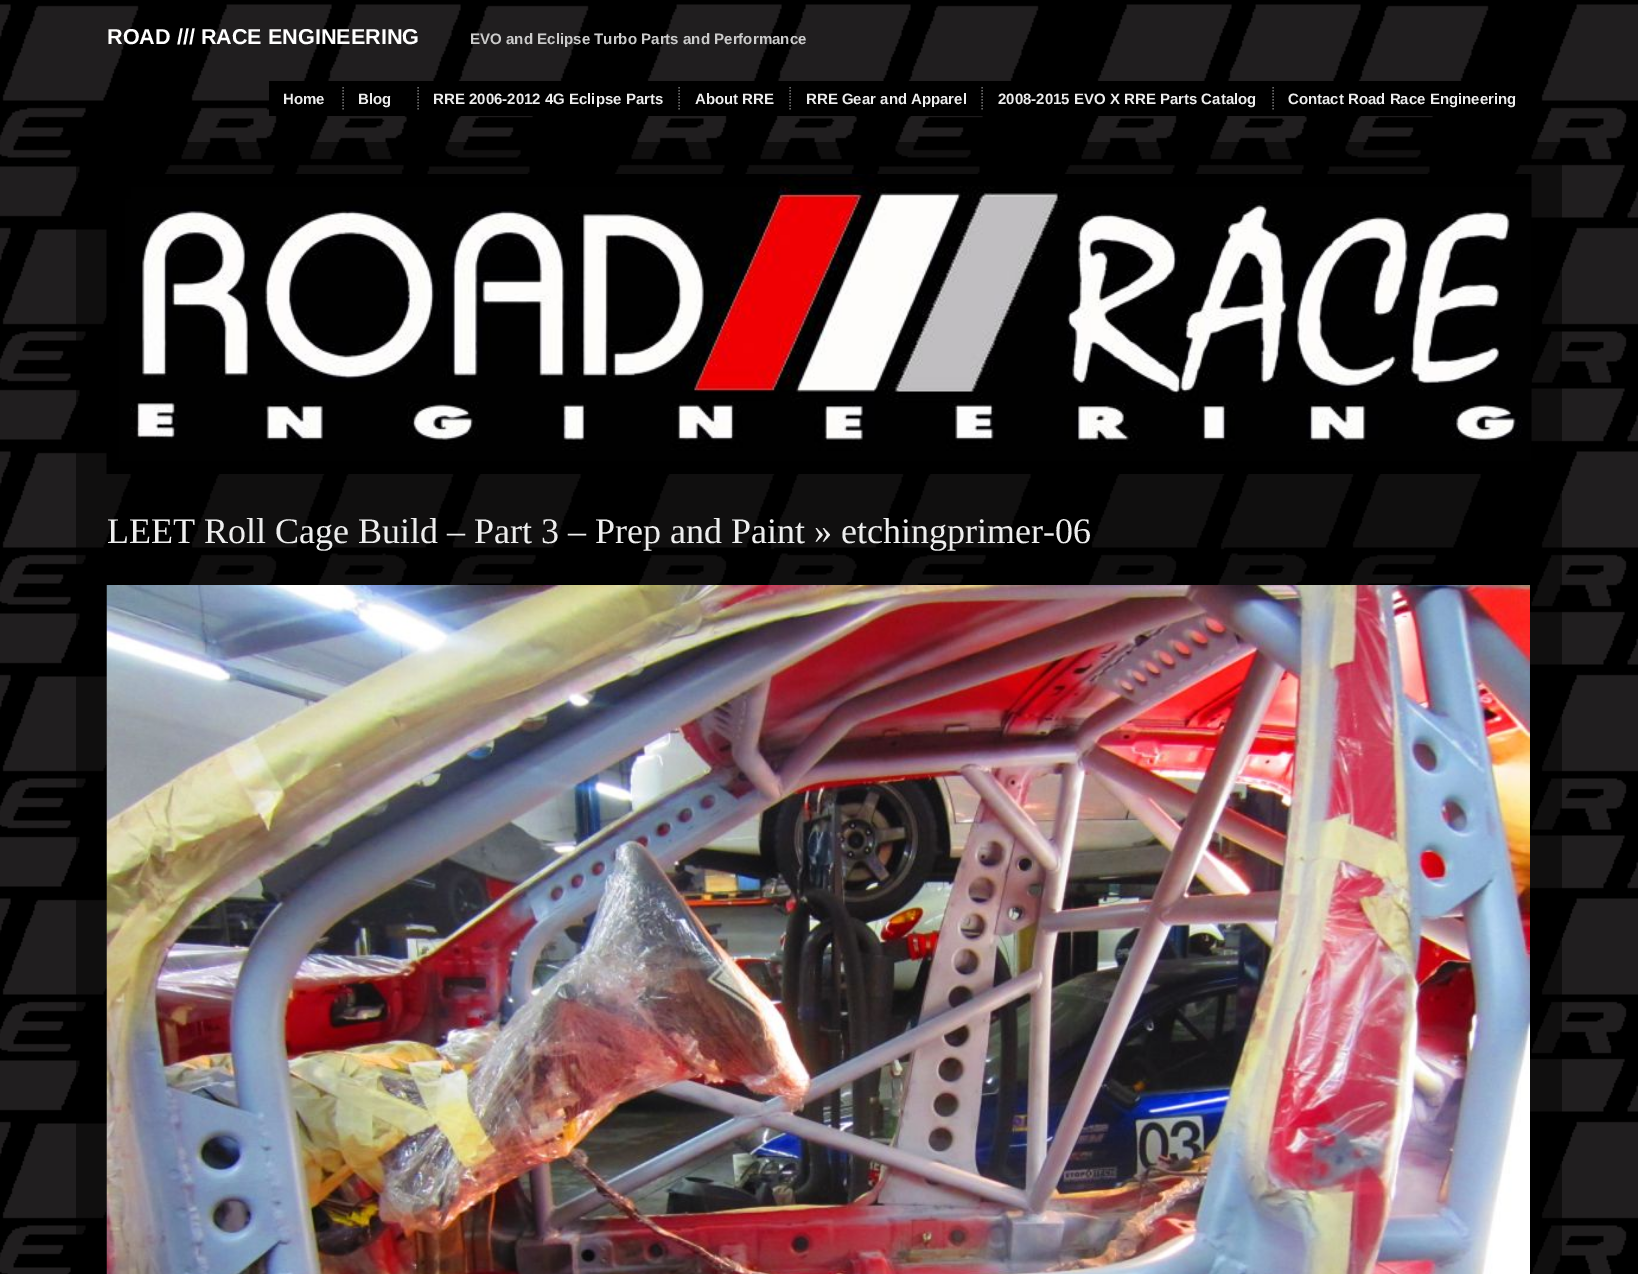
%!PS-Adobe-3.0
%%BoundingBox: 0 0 1638 1274
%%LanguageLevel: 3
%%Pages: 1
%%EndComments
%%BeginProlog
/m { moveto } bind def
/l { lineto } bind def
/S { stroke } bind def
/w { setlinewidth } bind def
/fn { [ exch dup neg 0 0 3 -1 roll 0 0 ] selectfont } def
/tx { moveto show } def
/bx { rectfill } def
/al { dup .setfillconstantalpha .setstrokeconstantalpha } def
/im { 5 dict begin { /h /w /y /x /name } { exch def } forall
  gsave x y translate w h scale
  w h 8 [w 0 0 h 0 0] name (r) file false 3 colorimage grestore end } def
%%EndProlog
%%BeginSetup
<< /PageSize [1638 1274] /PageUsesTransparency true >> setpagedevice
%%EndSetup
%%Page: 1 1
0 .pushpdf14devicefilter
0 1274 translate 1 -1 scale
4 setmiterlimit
1 setgray
0 0 1638 1274 bx
(image0.raw) 0 0 1638 1274 im
/LiberationSans-Bold 21.6 fn
(ROAD /// RACE ENGINEERING) 107 44 tx
/LiberationSans-Bold 15.1 fn
0.8 setgray
(EVO and Eclipse Turbo Parts and Performance) 470 44 tx
0 setgray
269 81 1193 35 bx
0.4 setgray
1.5 w
[1.5 1.5] 0 setdash
343 87 m 343 109.5 l S
/LiberationSans-Bold 15 fn
0.933 setgray
(Home) 283 104 tx
0.4 setgray
418 87 m 418 109.5 l S
0.933 setgray
(Blog) 358 104 tx
0.4 setgray
679 87 m 679 109.5 l S
0.933 setgray
(RRE 2006-2012 4G Eclipse Parts) 433 104 tx
0.4 setgray
790 87 m 790 109.5 l S
0.933 setgray
(About RRE) 695 104 tx
0.4 setgray
982 87 m 982 109.5 l S
0.933 setgray
(RRE Gear and Apparel) 806 104 tx
0.4 setgray
1273 87 m 1273 109.5 l S
0.933 setgray
(2008-2015 EVO X RRE Parts Catalog) 998 104 tx
(Contact Road Race Engineering) 1288 104 tx
0.5 al
0 setgray
76 142 1486 1132 bx
1 al
(image1.raw) 106 174 1426 300 im
/LiberationSerif-Regular 36 fn
0.933 setgray
(LEET Roll Cage Build – Part 3 – Prep and Paint » etchingprimer-06) 107 543 tx
(image2.raw) 106 585 1424 689 im
.poppdf14devicefilter showpage
%%EOF
